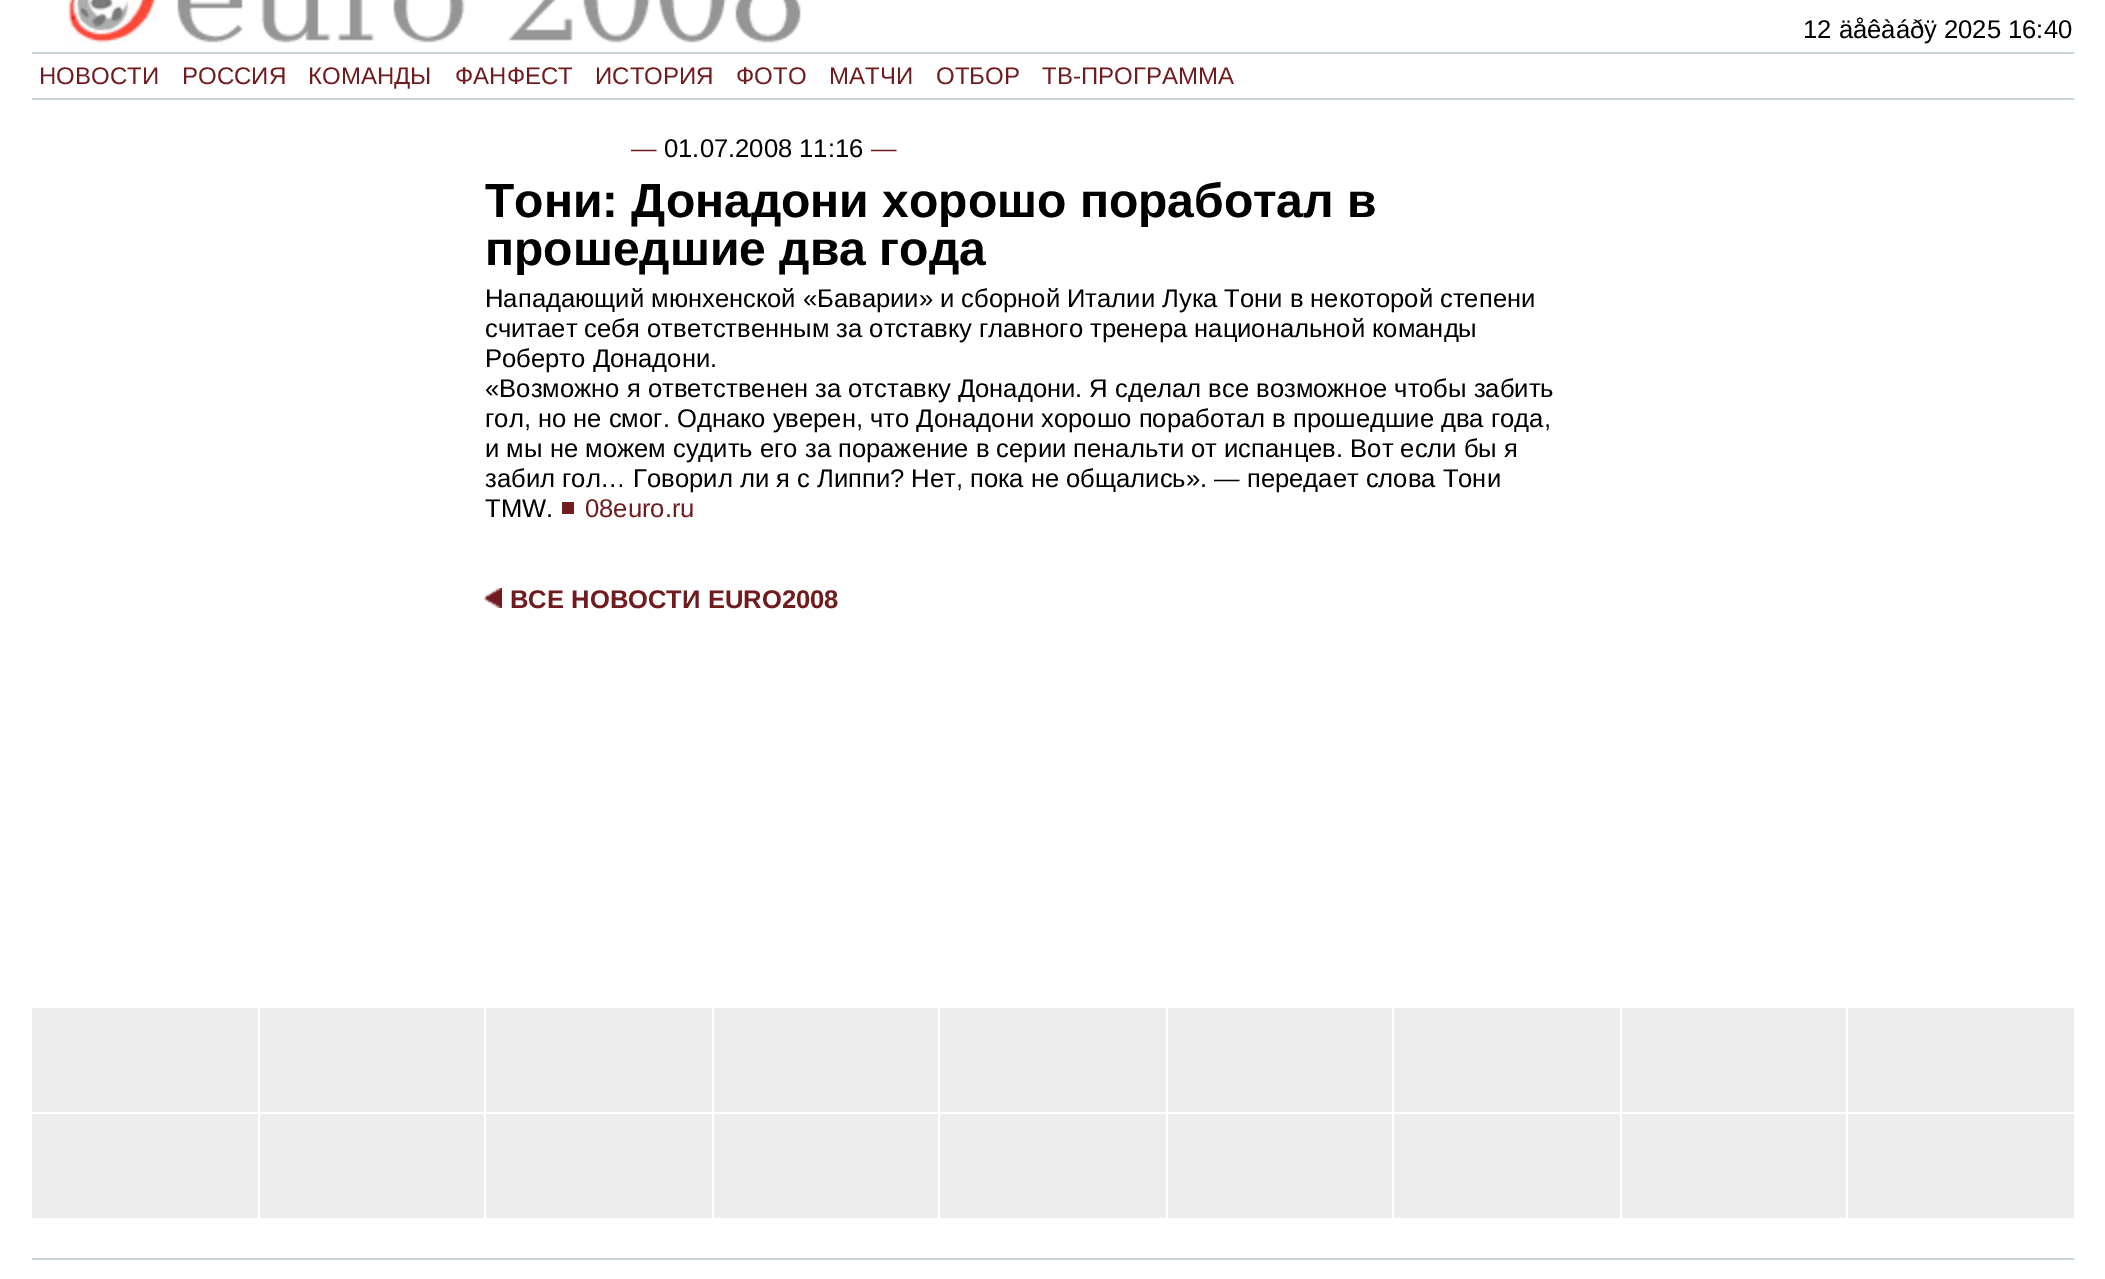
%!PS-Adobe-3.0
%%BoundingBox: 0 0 2105 1279
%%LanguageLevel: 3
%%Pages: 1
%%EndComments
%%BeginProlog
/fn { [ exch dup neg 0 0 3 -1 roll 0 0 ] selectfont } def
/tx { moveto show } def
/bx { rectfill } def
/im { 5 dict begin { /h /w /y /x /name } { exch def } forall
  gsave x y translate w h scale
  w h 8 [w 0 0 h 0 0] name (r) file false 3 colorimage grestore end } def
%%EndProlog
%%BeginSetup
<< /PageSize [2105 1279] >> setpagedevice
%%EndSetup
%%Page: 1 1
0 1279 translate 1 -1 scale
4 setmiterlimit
1 setgray
0 0 2105 1279 bx
(image0.raw) 66 0 94 44 im
(image1.raw) 177 0 624 43 im
/LiberationSans-Regular 25.6 fn
0 setgray
(12 äåêàáðÿ 2025 16:40) 1803 38 tx
0.78 0.827 0.847 setrgbcolor
32 52 2042 2 bx
32 98 2042 2 bx
/LiberationSans-Regular 24 fn
0.439 0.11 0.122 setrgbcolor
(НОВОСТИ) 39 84 tx
(РОССИЯ) 182 84 tx
(КОМАНДЫ) 308 84 tx
(ФАНФЕСТ) 455 84 tx
(ИСТОРИЯ) 595 84 tx
(ФОТО) 736 84 tx
(МАТЧИ) 829 84 tx
(ОТБОР) 936 84 tx
(ТВ-ПРОГРАММА) 1042 84 tx
/LiberationSans-Regular 25.6 fn
(—) 631 157 tx
0 setgray
(01.07.2008 11:16) 664 157 tx
0.439 0.11 0.122 setrgbcolor
(—) 871 157 tx
/LiberationSans-Bold 48 fn
0 setgray
(Тони: Донадони хорошо поработал в) 485 217 tx
(прошедшие два года) 485 265 tx
/LiberationSans-Regular 25.6 fn
(Нападающий мюнхенской «Баварии» и сборной Италии Лука Тони в некоторой степени) 485 307 tx
(считает себя ответственным за отставку главного тренера национальной команды) 485 337 tx
(Роберто Донадони.) 485 367 tx
(«Возможно я ответственен за отставку Донадони. Я сделал все возможное чтобы забить) 485 397 tx
(гол, но не смог. Однако уверен, что Донадони хорошо поработал в прошедшие два года,) 485 427 tx
(и мы не можем судить его за поражение в серии пенальти от испанцев. Вот если бы я) 485 457 tx
(забил гол… Говорил ли я с Липпи? Нет, пока не общались». — передает слова Тони) 485 487 tx
(TMW.) 485 517 tx
0.439 0.11 0.122 setrgbcolor
(08euro.ru) 585 517 tx
562 502 12 12 bx
(image2.raw) 484 588 18 20 im
/LiberationSans-Bold 25.6 fn
(ВСЕ НОВОСТИ EURO2008) 510 608 tx
0.925 setgray
32 1008 2042 210 bx
1 setgray
1846 1112 2 108 bx
1846 1112 230 2 bx
1846 1006 2 108 bx
1620 1112 2 108 bx
1620 1112 228 2 bx
1620 1006 2 108 bx
1392 1112 2 108 bx
1392 1112 230 2 bx
1392 1006 2 108 bx
1166 1112 2 108 bx
1166 1112 228 2 bx
1166 1006 2 108 bx
938 1112 2 108 bx
938 1112 230 2 bx
938 1006 2 108 bx
712 1112 2 108 bx
712 1112 228 2 bx
712 1006 2 108 bx
484 1112 2 108 bx
484 1112 230 2 bx
484 1006 2 108 bx
258 1112 2 108 bx
258 1112 228 2 bx
258 1006 2 108 bx
32 1112 228 2 bx
0.78 0.827 0.847 setrgbcolor
32 1258 2042 2 bx
showpage
%%EOF
